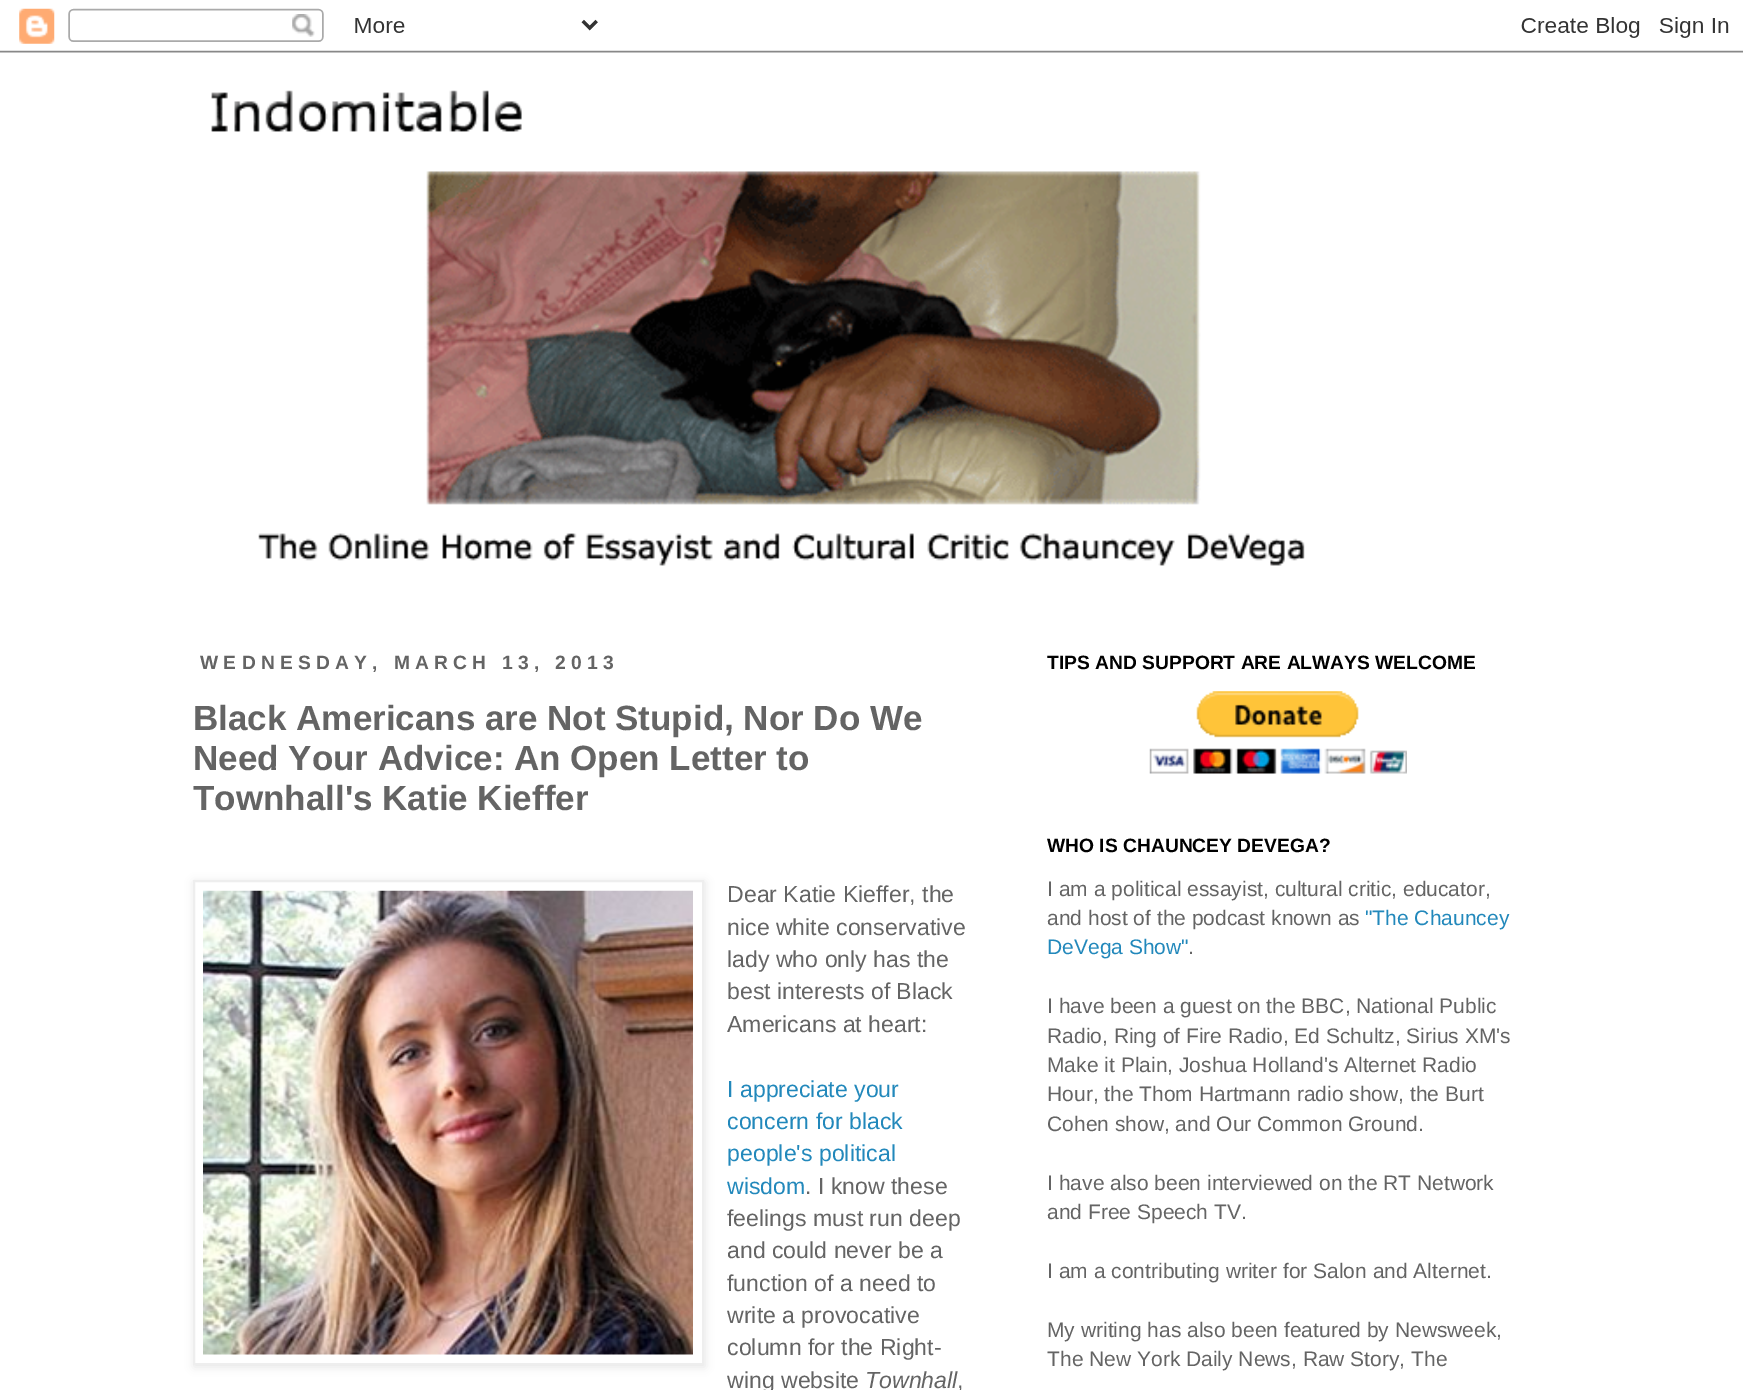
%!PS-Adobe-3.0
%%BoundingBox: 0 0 1743 1390
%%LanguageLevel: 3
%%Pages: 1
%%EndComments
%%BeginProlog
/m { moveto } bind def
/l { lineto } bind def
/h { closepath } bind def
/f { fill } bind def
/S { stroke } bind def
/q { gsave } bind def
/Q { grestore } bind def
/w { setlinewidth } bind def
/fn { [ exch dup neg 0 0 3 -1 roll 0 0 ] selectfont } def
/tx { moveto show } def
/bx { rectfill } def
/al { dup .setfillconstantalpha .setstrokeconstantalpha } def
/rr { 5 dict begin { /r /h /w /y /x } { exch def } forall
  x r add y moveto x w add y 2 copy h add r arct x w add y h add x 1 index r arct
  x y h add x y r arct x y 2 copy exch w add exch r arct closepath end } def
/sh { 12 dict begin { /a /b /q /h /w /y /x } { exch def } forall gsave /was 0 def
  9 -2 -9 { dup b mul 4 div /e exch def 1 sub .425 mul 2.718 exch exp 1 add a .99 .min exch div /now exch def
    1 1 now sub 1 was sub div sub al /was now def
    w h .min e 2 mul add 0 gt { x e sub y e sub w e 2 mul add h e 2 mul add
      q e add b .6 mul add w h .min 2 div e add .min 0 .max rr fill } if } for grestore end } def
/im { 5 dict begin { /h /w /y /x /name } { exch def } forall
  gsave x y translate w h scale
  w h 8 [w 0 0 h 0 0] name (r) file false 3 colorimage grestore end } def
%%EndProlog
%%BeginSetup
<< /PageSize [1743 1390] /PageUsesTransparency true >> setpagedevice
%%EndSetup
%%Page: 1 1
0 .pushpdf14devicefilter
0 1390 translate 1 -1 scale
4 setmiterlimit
1 setgray
0 0 1743 1390 bx
(image0.raw) 0 8 1743 45 im
(image1.raw) 211 90 1094 476 im
/LiberationSans-Bold 19.25 fn
0.392 setgray
200 669 m 5.25 0 (WEDNESDAY, MARCH 13, 2013) ashow
/LiberationSans-Bold 35 fn
(Black Americans are Not Stupid, Nor Do We) 193 730 tx
(Need Your Advice: An Open Letter to) 193 770 tx
(Townhall's Katie Kieffer) 193 810 tx
0 setgray
194 882 511 485 0 4.5 0.1 sh
1 setgray
194 881 m 703 881 l 703 1364 l 194 1364 l h q f Q
0.933 setgray
2 w
S
(image2.raw) 203 890 490 465 im
/LiberationSans-Regular 23.1 fn
0.392 setgray
(Dear Katie Kieffer, the) 727 902 tx
(nice white conservative) 727 935 tx
(lady who only has the) 727 967 tx
(best interests of Black) 727 999 tx
(Americans at heart:) 727 1032 tx
0.133 0.533 0.733 setrgbcolor
(I appreciate your) 727 1097 tx
(concern for black) 727 1129 tx
(people's political) 727 1161 tx
(wisdom) 727 1194 tx
0.392 setgray
(. I know these) 805 1194 tx
(feelings must run deep) 727 1226 tx
(and could never be a) 727 1258 tx
(function of a need to) 727 1291 tx
(write a provocative) 727 1323 tx
(column for the Right-) 727 1355 tx
(wing website) 727 1388 tx
/LiberationSans-Italic 23.1 fn
(Townhall) 865 1388 tx
/LiberationSans-Regular 23.1 fn
(,) 957 1388 tx
/LiberationSans-Bold 19.25 fn
0 setgray
(TIPS AND SUPPORT ARE ALWAYS WELCOME) 1047 669 tx
(image3.raw) 1149 691 258 83 im
(WHO IS CHAUNCEY DEVEGA?) 1047 852 tx
/LiberationSans-Regular 21 fn
0.392 setgray
(I am a political essayist, cultural critic, educator,) 1047 896 tx
(and host of the podcast known as) 1047 925 tx
0.133 0.533 0.733 setrgbcolor
("The Chauncey) 1365 925 tx
(DeVega Show") 1047 954 tx
0.392 setgray
(.) 1188 954 tx
(I have been a guest on the BBC, National Public) 1047 1013 tx
(Radio, Ring of Fire Radio, Ed Schultz, Sirius XM's) 1047 1043 tx
(Make it Plain, Joshua Holland's Alternet Radio) 1047 1072 tx
(Hour, the Thom Hartmann radio show, the Burt) 1047 1101 tx
(Cohen show, and Our Common Ground.) 1047 1131 tx
(I have also been interviewed on the RT Network) 1047 1190 tx
(and Free Speech TV.) 1047 1219 tx
(I am a contributing writer for Salon and Alternet.) 1047 1278 tx
(My writing has also been featured by Newsweek,) 1047 1337 tx
(The New York Daily News, Raw Story, The) 1047 1366 tx
.poppdf14devicefilter showpage
%%EOF
